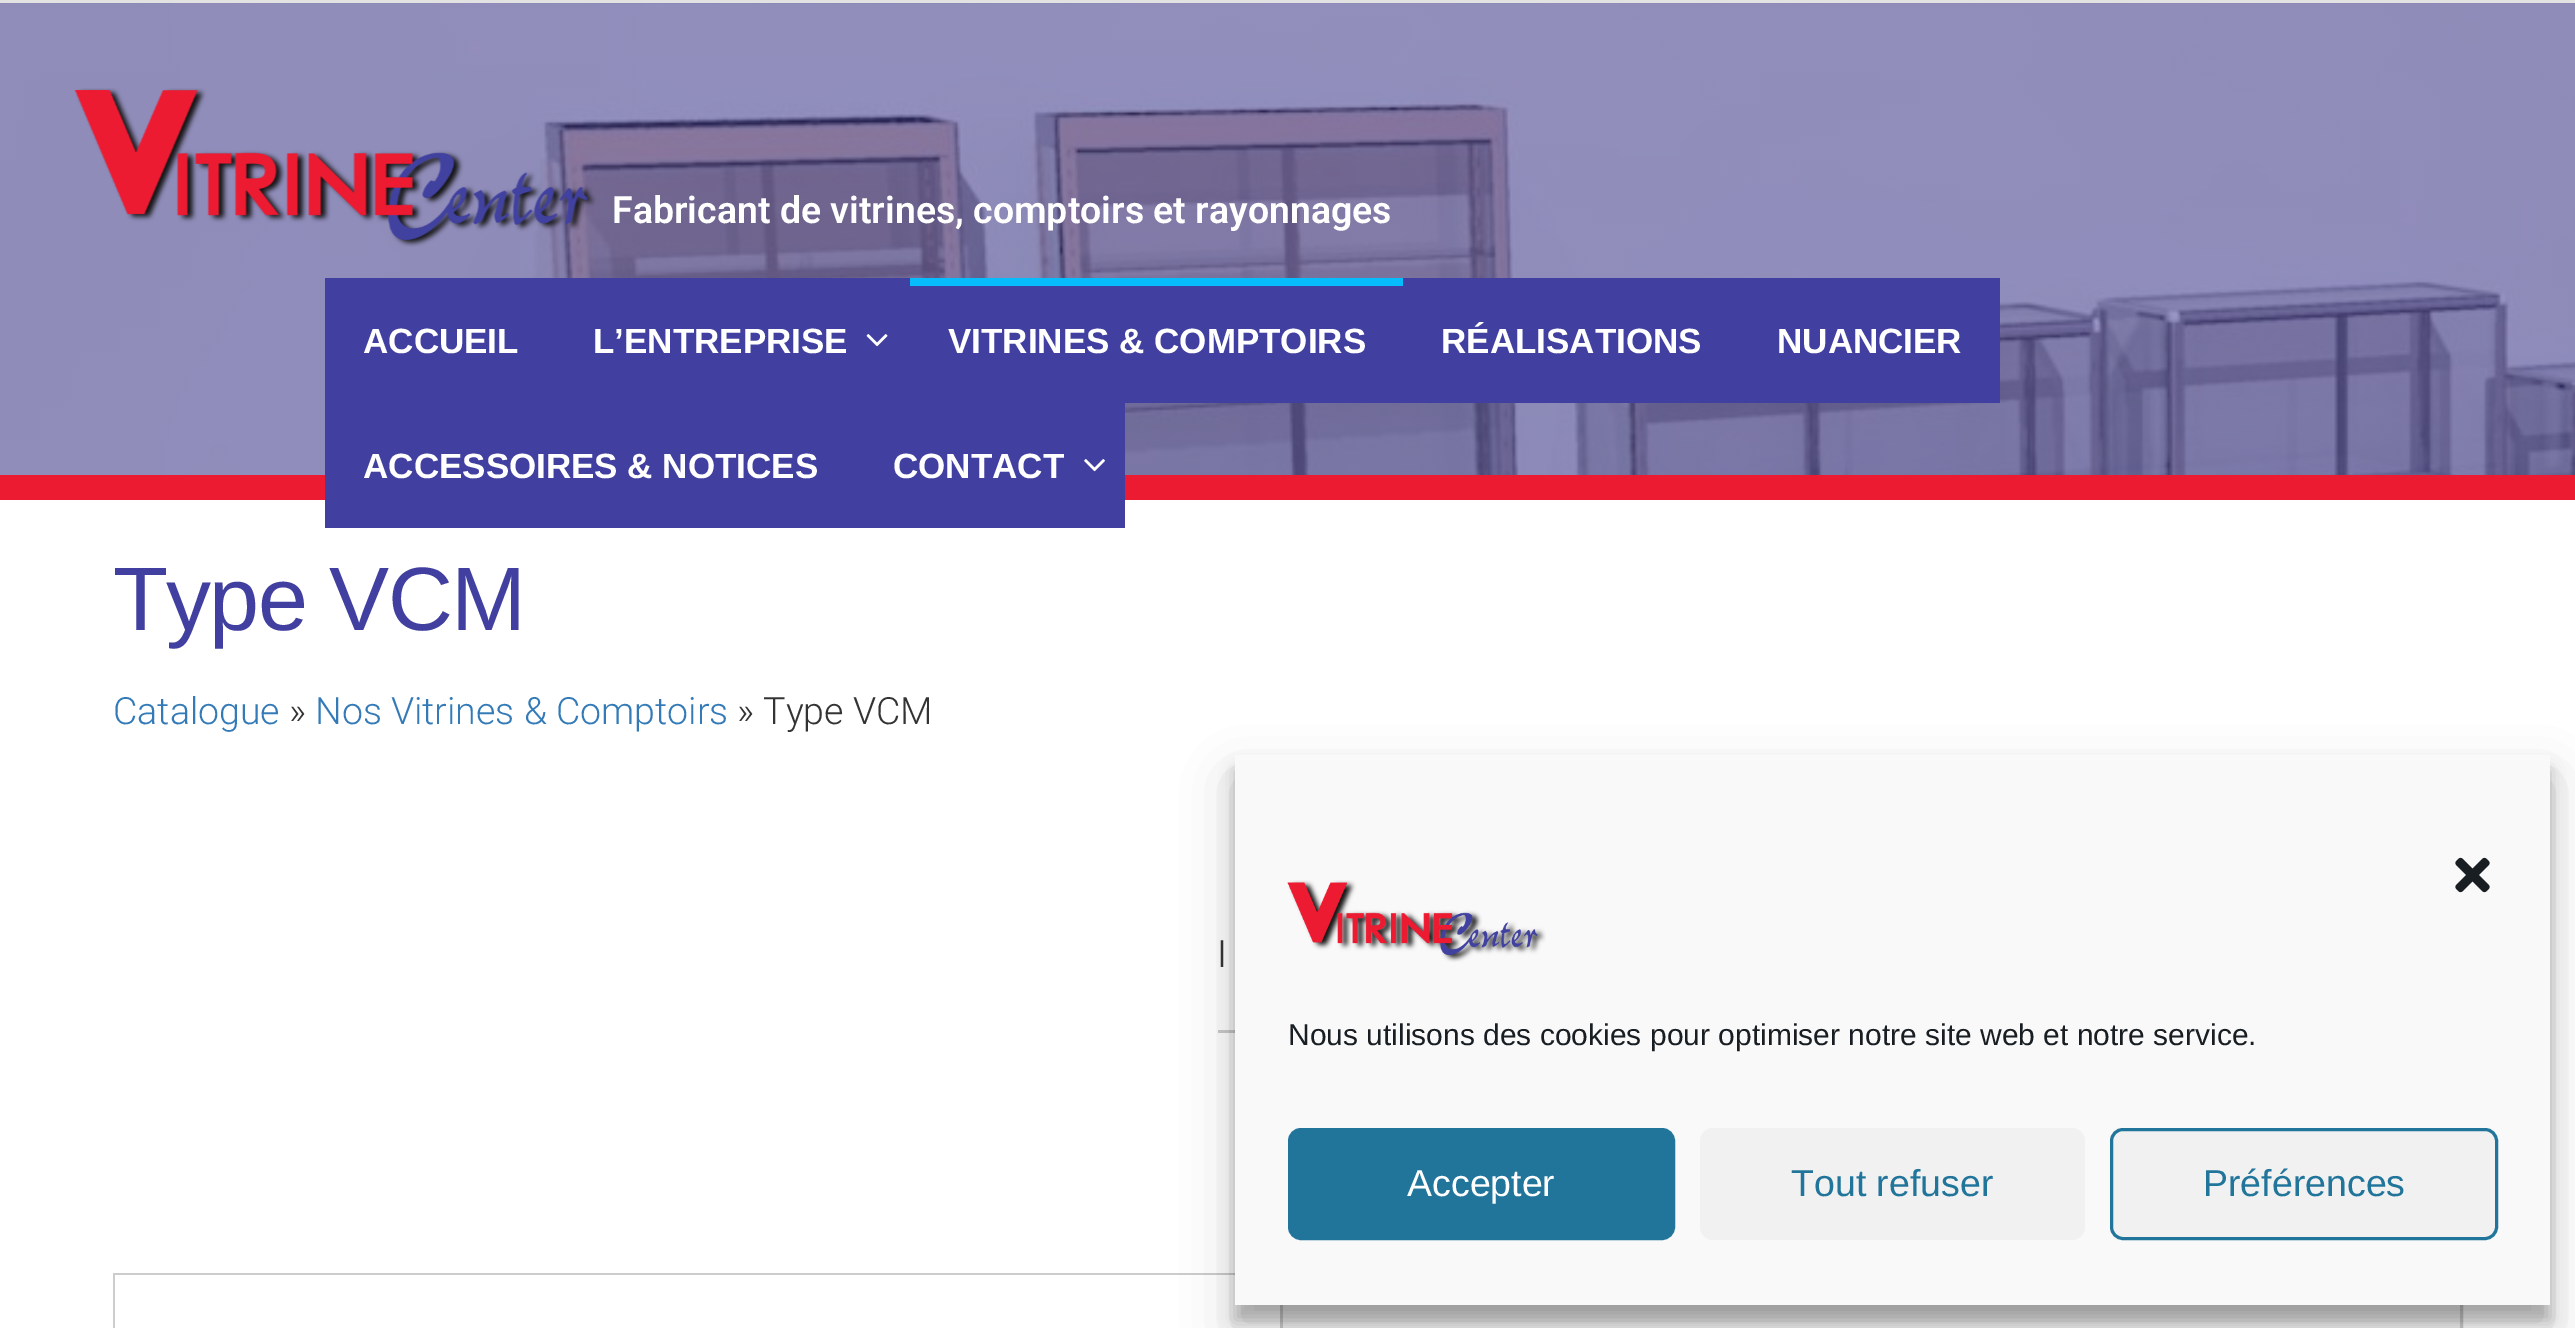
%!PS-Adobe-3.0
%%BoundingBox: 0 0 2575 1328
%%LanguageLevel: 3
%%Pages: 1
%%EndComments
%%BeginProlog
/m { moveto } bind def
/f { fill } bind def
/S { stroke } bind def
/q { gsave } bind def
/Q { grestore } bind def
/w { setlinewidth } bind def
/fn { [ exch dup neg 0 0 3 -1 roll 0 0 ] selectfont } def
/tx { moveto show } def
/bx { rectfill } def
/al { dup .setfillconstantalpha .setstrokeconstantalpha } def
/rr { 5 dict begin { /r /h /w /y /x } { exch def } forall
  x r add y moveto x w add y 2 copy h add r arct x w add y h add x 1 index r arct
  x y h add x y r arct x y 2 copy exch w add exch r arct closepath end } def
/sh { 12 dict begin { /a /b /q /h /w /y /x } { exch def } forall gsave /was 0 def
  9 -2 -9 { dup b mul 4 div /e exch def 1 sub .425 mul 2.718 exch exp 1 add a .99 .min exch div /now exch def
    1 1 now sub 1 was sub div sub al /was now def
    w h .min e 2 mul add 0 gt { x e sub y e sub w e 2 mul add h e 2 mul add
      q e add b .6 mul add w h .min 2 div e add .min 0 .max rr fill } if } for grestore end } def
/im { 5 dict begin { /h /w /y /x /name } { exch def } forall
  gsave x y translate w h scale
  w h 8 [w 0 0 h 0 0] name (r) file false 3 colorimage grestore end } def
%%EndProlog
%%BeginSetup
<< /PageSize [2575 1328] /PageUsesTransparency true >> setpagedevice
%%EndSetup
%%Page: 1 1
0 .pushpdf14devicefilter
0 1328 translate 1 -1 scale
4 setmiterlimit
1 setgray
0 0 2575 1328 bx
(image0.raw) 0 3 2575 472 im
0.886 setgray
0 0 2575 3 bx
0.929 0.106 0.196 setrgbcolor
0 475 2575 25 bx
(image1.raw) 74 88 522 159 im
/Roboto-SemiBold 37.5 fn
1 setgray
(Fabricant de vitrines, comptoirs et rayonnages) 612 223 tx
0.255 0.251 0.627 setrgbcolor
325 278 585 125 bx
/LiberationSans-Bold 35 fn
1 setgray
(ACCUEIL) 363 353 tx
(L’ENTREPRISE) 593 353 tx
(image2.raw) 866 334 22 13 im
0.255 0.251 0.627 setrgbcolor
910 286 493 117 bx
0.027 0.737 0.992 setrgbcolor
910 278 493 8 bx
1 setgray
(VITRINES & COMPTOIRS) 948 353 tx
0.255 0.251 0.627 setrgbcolor
1403 278 597 125 bx
1 setgray
(RÉALISATIONS) 1441 353 tx
(NUANCIER) 1777 353 tx
0.255 0.251 0.627 setrgbcolor
325 403 800 125 bx
1 setgray
(ACCESSOIRES & NOTICES) 363 478 tx
(CONTACT) 893 478 tx
(image3.raw) 1084 459 21 13 im
/LiberationSans-Regular 90 fn
0.255 0.251 0.627 setrgbcolor
113 630 m -1.75 0 (Type VCM) ashow
/Roboto-Light 37.5 fn
0.2 0.478 0.718 setrgbcolor
(Catalogue) 113 724 tx
0.2 setgray
(») 289 724 tx
0.2 0.478 0.718 setrgbcolor
(Nos Vitrines & Comptoirs) 315 724 tx
0.2 setgray
(» Type VCM) 737 724 tx
0.8 setgray
1218 1030 17 3 bx
0.2 setgray
(I) 1217 967 tx
0.957 setgray
1283 1305 1177 23 bx
0.8 setgray
3 w
114.5 1274.5 2347 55 rectstroke
1 setgray
115 1275 1165 53 bx
0.8 setgray
1280 1305 3 23 bx
0 setgray
1235 770 1315 550 0 7.5 0.23 sh
1235 780 1315 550 0 25 0.19 sh
0.976 setgray
1235 755 1315 550 bx
(image4.raw) 2455 857 35 36 im
(image5.raw) 1287 880 259 82 im
/LiberationSans-Regular 30 fn
0.098 0.118 0.137 setrgbcolor
(Nous utilisons des cookies pour optimiser notre site web et notre service.) 1288 1045 tx
0.129 0.459 0.608 setrgbcolor
1289.5 1129.5 384 109 11.5 rr q f Q
S
/LiberationSans-Regular 37.5 fn
1 setgray
(Accepter) 1407 1196 tx
0.945 setgray
1700 1128 385 112 13 rr f
0.129 0.459 0.608 setrgbcolor
(Tout refuser) 1791 1196 tx
0.945 setgray
2111.5 1129.5 385 109 11.5 rr q f Q
0.129 0.459 0.608 setrgbcolor
S
(Préférences) 2203 1196 tx
.poppdf14devicefilter showpage
%%EOF
